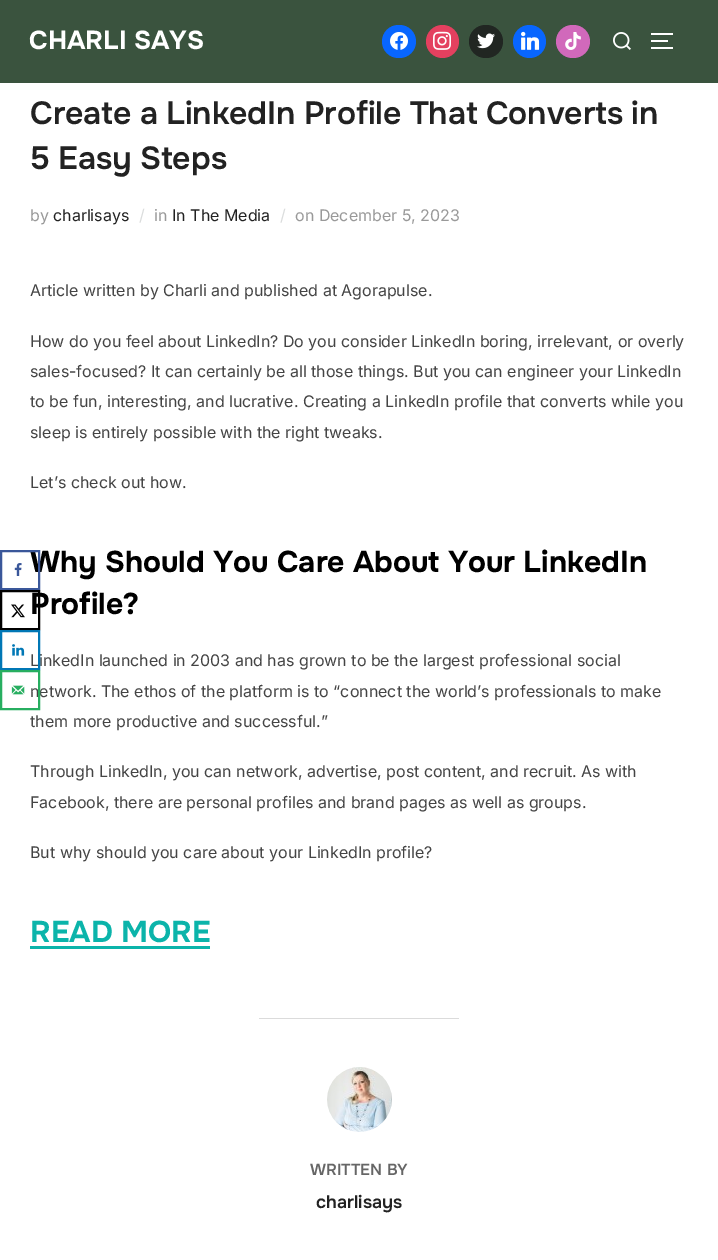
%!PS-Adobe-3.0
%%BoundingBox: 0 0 718 1260
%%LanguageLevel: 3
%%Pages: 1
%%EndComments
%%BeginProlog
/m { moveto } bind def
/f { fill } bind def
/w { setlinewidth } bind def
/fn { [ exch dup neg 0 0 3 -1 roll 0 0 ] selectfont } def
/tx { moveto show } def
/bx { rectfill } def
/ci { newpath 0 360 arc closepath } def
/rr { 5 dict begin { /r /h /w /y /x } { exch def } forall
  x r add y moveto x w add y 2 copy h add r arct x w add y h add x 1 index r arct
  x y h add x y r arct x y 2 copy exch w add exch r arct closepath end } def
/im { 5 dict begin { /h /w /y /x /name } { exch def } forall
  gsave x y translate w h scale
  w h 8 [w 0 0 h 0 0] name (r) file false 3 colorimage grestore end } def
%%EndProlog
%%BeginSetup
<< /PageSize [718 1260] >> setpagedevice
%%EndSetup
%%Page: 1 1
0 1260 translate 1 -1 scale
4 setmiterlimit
1 setgray
0 0 718 1260 bx
/Onest-Bold 30 fn
0 setgray
30 572 m -0.25 0 32 (Why Should You Care About Your LinkedIn) widthshow
0.227 0.341 0.604 setrgbcolor
2 w
1 551 38 38 rectstroke
(image0.raw) 14 563 8 13 im
0 setgray
1 591 38 38 rectstroke
(image1.raw) 11 604 14 14 im
/Inter-Regular 16 fn
0.267 setgray
(LinkedIn launched in 2003 and has grown to be the largest professional social) 30 666 tx
0 0.467 0.71 setrgbcolor
1 631 38 38 rectstroke
(image2.raw) 12 644 13 12 im
0.267 setgray
(network. The ethos of the platform is to “connect the world’s professionals to make) 30 697 tx
0.153 0.682 0.376 setrgbcolor
1 671 38 38 rectstroke
(image3.raw) 11 685 14 10 im
0.227 0.325 0.243 setrgbcolor
0 0 718 83 bx
/Onest-Bold 26 fn
1 setgray
(CHARLI SAYS) 29 49 tx
0.031 0.4 1 setrgbcolor
382 25 34 33 16.5 rr f
(image4.raw) 390 32 18 18 im
0.894 0.251 0.373 setrgbcolor
442.5 41.5 16.5 ci f
(image5.raw) 433 31 18 19 im
0.129 0.149 0.133 setrgbcolor
469 25 34 33 16.5 rr f
(image6.raw) 477 33 18 16 im
0.031 0.4 1 setrgbcolor
529.5 41.5 16.5 ci f
(image7.raw) 521 31 19 19 im
0.82 0.412 0.733 setrgbcolor
556 25 34 33 16.5 rr f
(image8.raw) 565 32 16 18 im
(image9.raw) 613 32 18 18 im
1 setgray
651 33 22 2 bx
651 40 17 2 bx
651 47 22 2 bx
/Onest-SemiBold 32 fn
0.133 setgray
30 124 m -0.75 0 32 (Create a LinkedIn Profile That Converts in) widthshow
30 169 m -0.75 0 32 (5 Easy Steps) widthshow
/Inter-Regular 16 fn
0.6 setgray
(by) 30 221 tx
0.133 setgray
(charlisays) 53 221 tx
0.859 0.867 0.867 setrgbcolor
(/) 139 221 tx
0.6 setgray
(in) 154 221 tx
0.133 setgray
(In The Media) 172 221 tx
0.859 0.867 0.867 setrgbcolor
(/) 280 221 tx
0.6 setgray
(on December 5, 2023) 295 221 tx
0.267 setgray
(Article written by Charli and published at Agorapulse.) 30 296 tx
(How do you feel about LinkedIn? Do you consider LinkedIn boring, irrelevant, or overly) 30 347 tx
(sales-focused? It can certainly be all those things. But you can engineer your LinkedIn) 30 377 tx
(to be fun, interesting, and lucrative. Creating a LinkedIn profile that converts while you) 30 407 tx
(sleep is entirely possible with the right tweaks.) 30 438 tx
(Let’s check out how.) 30 488 tx
/Onest-Bold 30 fn
0 setgray
(Profile?) 30 614 tx
/Inter-Regular 16 fn
0.267 setgray
(them more productive and successful.”) 30 727 tx
(Through LinkedIn, you can network, advertise, post content, and recruit. As with) 30 777 tx
(Facebook, there are personal profiles and brand pages as well as groups.) 30 808 tx
(But why should you care about your LinkedIn profile?) 30 858 tx
/Onest-Bold 30 fn
0.043 0.706 0.667 setrgbcolor
(READ MORE) 30 942 tx
30 946 180 3 bx
0.859 setgray
259 1018 200 1 bx
(image10.raw) 327 1067 65 65 im
/Onest-SemiBold 16 fn
0.4 setgray
(WRITTEN BY) 310 1175 tx
/Onest-SemiBold 18 fn
0.133 setgray
(charlisays) 316 1208 tx
showpage
%%EOF
